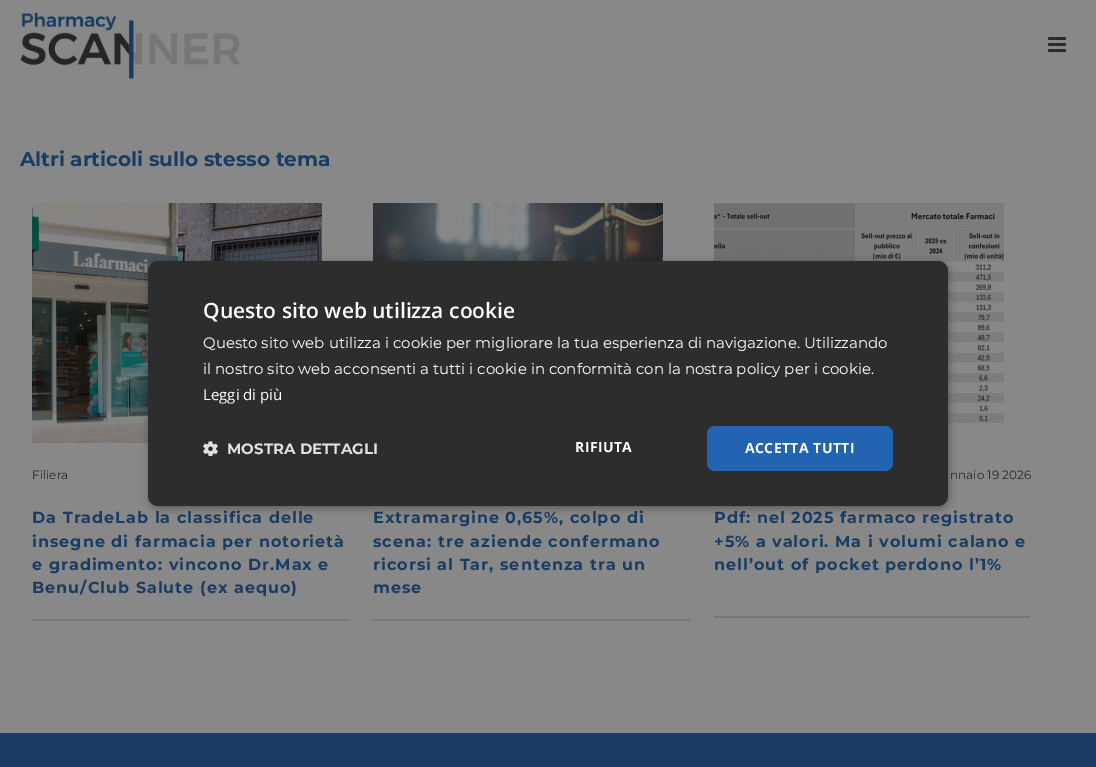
%!PS-Adobe-3.0
%%BoundingBox: 0 0 1096 767
%%LanguageLevel: 3
%%Pages: 1
%%EndComments
%%BeginProlog
/m { moveto } bind def
/f { fill } bind def
/fn { [ exch dup neg 0 0 3 -1 roll 0 0 ] selectfont } def
/tx { moveto show } def
/bx { rectfill } def
/al { dup .setfillconstantalpha .setstrokeconstantalpha } def
/rr { 5 dict begin { /r /h /w /y /x } { exch def } forall
  x r add y moveto x w add y 2 copy h add r arct x w add y h add x 1 index r arct
  x y h add x y r arct x y 2 copy exch w add exch r arct closepath end } def
/sh { 12 dict begin { /a /b /q /h /w /y /x } { exch def } forall gsave /was 0 def
  9 -2 -9 { dup b mul 4 div /e exch def 1 sub .425 mul 2.718 exch exp 1 add a .99 .min exch div /now exch def
    1 1 now sub 1 was sub div sub al /was now def
    w h .min e 2 mul add 0 gt { x e sub y e sub w e 2 mul add h e 2 mul add
      q e add b .6 mul add w h .min 2 div e add .min 0 .max rr fill } if } for grestore end } def
/im { 5 dict begin { /h /w /y /x /name } { exch def } forall
  gsave x y translate w h scale
  w h 8 [w 0 0 h 0 0] name (r) file false 3 colorimage grestore end } def
%%EndProlog
%%BeginSetup
<< /PageSize [1096 767] /PageUsesTransparency true >> setpagedevice
%%EndSetup
%%Page: 1 1
0 .pushpdf14devicefilter
0 767 translate 1 -1 scale
4 setmiterlimit
0.102 0.231 0.384 setrgbcolor
0 0 1096 767 bx
0.533 setgray
0 0 1096 733 bx
(image0.raw) 20 12 220 67 im
0.169 setgray
1048 37 18 3 1.5 rr f
1048 43 18 3 1.5 rr f
1048 49 18 3 1.5 rr f
/Montserrat-Bold 20 fn
0.102 0.231 0.384 setrgbcolor
(Altri articoli sullo stesso tema) 20 166 tx
0.467 setgray
32 619 317 2 bx
(image1.raw) 32 203 290 240 im
/Montserrat-Regular 12 fn
0.145 setgray
(Filiera) 32 479 tx
/Montserrat-Bold 16 fn
0.102 0.231 0.384 setrgbcolor
32 523 m 1 0 (Da TradeLab la classifica delle) ashow
32 547 m 1 0 (insegne di farmacia per notorietà) ashow
32 570 m 1 0 (e gradimento: vincono Dr.Max e) ashow
32 593 m 1 0 (Benu/Club Salute \(ex aequo\)) ashow
0.467 setgray
373 619 317 2 bx
(image2.raw) 373 203 290 58 im
0.102 0.231 0.384 setrgbcolor
373 523 m 1 0 (Extramargine 0,65%, colpo di) ashow
373 547 m 1 0 (scena: tre aziende confermano) ashow
373 570 m 1 0 (ricorsi al Tar, sentenza tra un) ashow
373 593 m 1 0 (mese) ashow
0.467 setgray
714 616 316 2 bx
(image3.raw) 714 203 290 240 im
/Montserrat-Regular 12 fn
0.145 setgray
(nnaio 19 2026) 950 479 tx
/Montserrat-Bold 16 fn
0.102 0.231 0.384 setrgbcolor
714 523 m 1 0 (Pdf: nel 2025 farmaco registrato) ashow
714 547 m 1 0 (+5% a valori. Ma i volumi calano e) ashow
714 570 m 1 0 (nell’out of pocket perdono l’1%) ashow
0 setgray
149 263 800 245 10 4 0.35 sh
0.176 setgray
148 261 800 245 10 rr f
/OpenSans-SemiBold 21 fn
1 setgray
(Questo sito web utilizza cookie) 203 318 tx
/Montserrat-Regular 15 fn
(Questo sito web utilizza i cookie per migliorare la tua esperienza di navigazione. Utilizzando) 203 348 tx
(il nostro sito web acconsenti a tutti i cookie in conformità con la nostra policy per i cookie.) 203 374 tx
/OpenSans-Regular 15 fn
(Leggi di più) 203 400 tx
(image4.raw) 203 441 15 15 im
/Montserrat-Bold 15 fn
0.878 setgray
(MOSTRA DETTAGLI) 227 454 tx
/OpenSans-Bold 14 fn
1 setgray
575 452 m 0.4 0 (RIFIUTA) ashow
0.133 0.392 0.698 setrgbcolor
707 426 186 45 8 rr f
1 setgray
745 453 m 0.4 0 (ACCETTA TUTTI) ashow
.poppdf14devicefilter showpage
%%EOF
